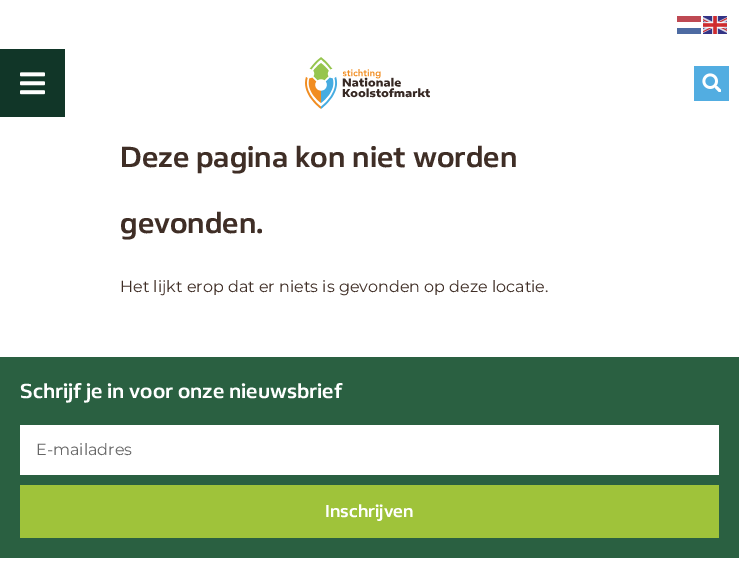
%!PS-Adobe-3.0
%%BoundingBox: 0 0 739 588
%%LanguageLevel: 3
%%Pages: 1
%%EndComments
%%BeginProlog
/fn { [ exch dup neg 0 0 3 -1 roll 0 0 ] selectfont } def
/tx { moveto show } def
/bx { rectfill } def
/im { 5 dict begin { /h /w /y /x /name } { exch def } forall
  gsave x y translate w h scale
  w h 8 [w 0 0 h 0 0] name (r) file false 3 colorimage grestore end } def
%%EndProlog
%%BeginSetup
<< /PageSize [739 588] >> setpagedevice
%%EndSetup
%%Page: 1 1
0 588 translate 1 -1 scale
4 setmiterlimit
1 setgray
0 0 739 588 bx
0.745 0.286 0.325 setrgbcolor
677 16 24 6 bx
(image0.raw) 703 16 24 18 im
0.302 0.42 0.635 setrgbcolor
677 28 24 6 bx
0.067 0.212 0.157 setrgbcolor
0 49 65 68 bx
(image1.raw) 20 72 25 23 im
(image2.raw) 305 57 125 52 im
0.322 0.678 0.882 setrgbcolor
694 66 35 35 bx
(image3.raw) 702 73 19 19 im
/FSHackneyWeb-Bold 30 fn
0.247 0.18 0.149 setrgbcolor
(Deze pagina kon niet worden) 120 167 tx
(gevonden.) 120 233 tx
/Montserrat-Regular 16 fn
(Het lijkt erop dat er niets is gevonden op deze locatie.) 120 292 tx
0.165 0.376 0.255 setrgbcolor
0 357 739 201 bx
/FSHackneyWeb-Bold 21 fn
1 setgray
(Schrijf je in voor onze nieuwsbrief) 20 398 tx
20 425 699 50 bx
/Montserrat-Regular 16 fn
0.4 setgray
(E-mailadres) 36 455 tx
0.624 0.765 0.227 setrgbcolor
20 485 699 53 bx
/FSHackneyWeb-Bold 18 fn
1 setgray
(Inschrijven) 325 517 tx
showpage
%%EOF
